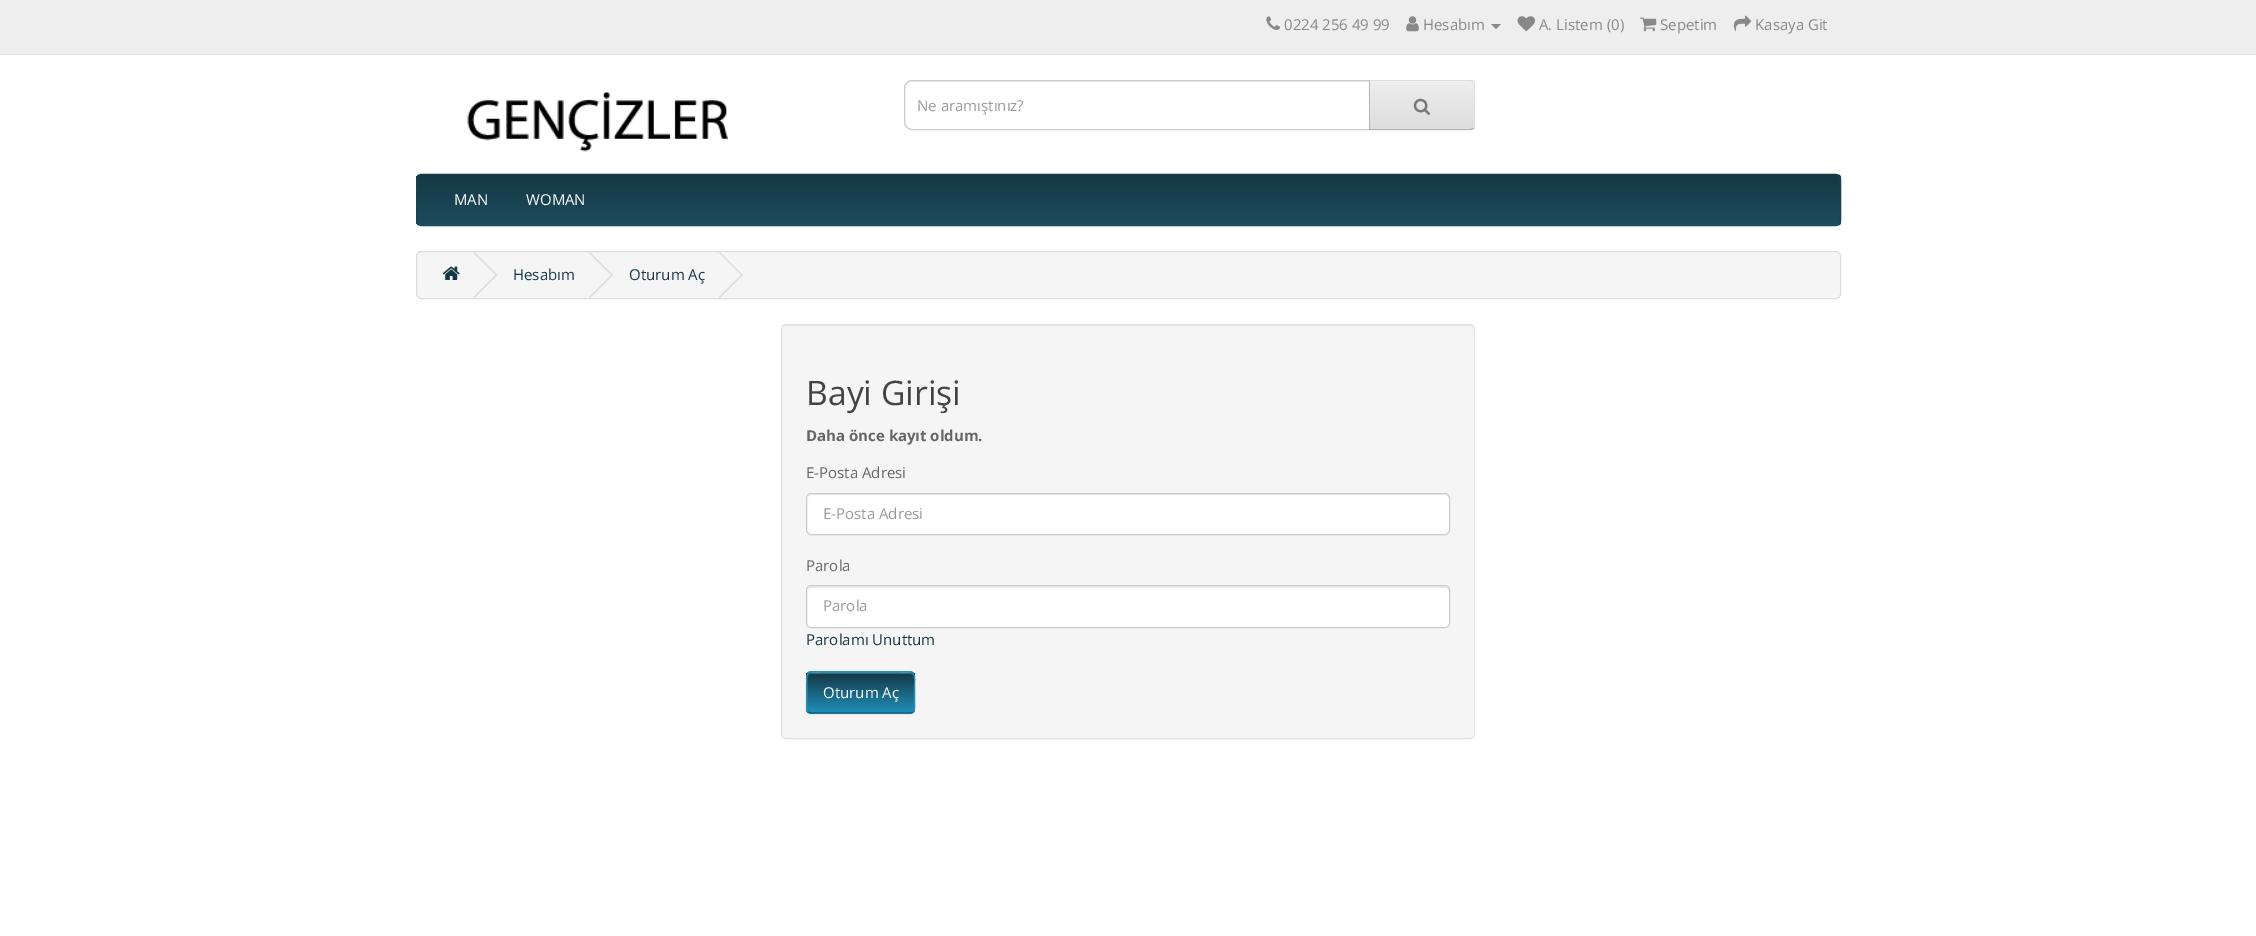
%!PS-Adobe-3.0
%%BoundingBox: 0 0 2256 936
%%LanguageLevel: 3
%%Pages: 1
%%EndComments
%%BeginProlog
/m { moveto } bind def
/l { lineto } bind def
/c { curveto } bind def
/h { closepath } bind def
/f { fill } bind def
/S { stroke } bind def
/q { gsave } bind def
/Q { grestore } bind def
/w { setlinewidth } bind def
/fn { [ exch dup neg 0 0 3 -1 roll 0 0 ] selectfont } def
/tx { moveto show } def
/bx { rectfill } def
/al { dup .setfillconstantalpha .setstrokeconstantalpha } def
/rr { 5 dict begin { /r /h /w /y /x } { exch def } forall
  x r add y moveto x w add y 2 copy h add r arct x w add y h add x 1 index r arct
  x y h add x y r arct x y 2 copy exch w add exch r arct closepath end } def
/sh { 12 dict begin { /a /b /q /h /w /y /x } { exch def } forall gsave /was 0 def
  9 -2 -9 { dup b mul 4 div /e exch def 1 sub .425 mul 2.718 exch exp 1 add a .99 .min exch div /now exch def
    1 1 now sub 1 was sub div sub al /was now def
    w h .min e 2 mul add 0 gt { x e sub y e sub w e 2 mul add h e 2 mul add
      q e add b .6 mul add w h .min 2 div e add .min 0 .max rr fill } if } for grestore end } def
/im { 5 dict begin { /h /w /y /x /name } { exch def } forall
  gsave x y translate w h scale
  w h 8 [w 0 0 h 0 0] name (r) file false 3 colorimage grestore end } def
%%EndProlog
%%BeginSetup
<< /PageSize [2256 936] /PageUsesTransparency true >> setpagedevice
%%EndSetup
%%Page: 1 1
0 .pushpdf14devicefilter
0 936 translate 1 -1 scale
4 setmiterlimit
1 setgray
0 0 2256 936 bx
0.933 setgray
0 0 2256 54 bx
0.886 setgray
0 54 2256 1 bx
(image0.raw) 1266 16 14 14 im
/OpenSans-Regular 15 fn
0.533 setgray
(0224 256 49 99) 1284 30 tx
(image1.raw) 1406 16 13 16 im
(Hesabım) 1423 30 tx
1491 24 m 1501 24 l 1496 29 l h f
(image2.raw) 1517 16 18 16 im
(A. Listem \(0\)) 1539 30 tx
(image3.raw) 1640 17 17 15 im
(Sepetim) 1660 30 tx
(image4.raw) 1733 15 19 17 im
(Kasaya Git) 1755 30 tx
(image5.raw) 467 92 262 60 im
0.925 setgray
911 82 m 1369 82 l 1369 81 l 911 81 l 906 81 905 85 905 89 c 905 85 908 82 911 82 c h f
0.8 setgray
912 80.5 m 1369.5 80.5 l 1369.5 129.5 l 912 129.5 l 908 129.5 904.5 126 904.5 122 c 904.5 88 l 904.5 84 908 80.5 912 80.5 c h S
0.6 setgray
(Ne aramıştınız?) 917 111 tx
0 setgray
1369 81 106 50 5 1 0.05 sh
q
1369 80 m 1470 80 l 1473 80 1475 82 1475 85 c 1475 125 l 1475 128 1473 130 1470 130 c 1369 130 l h clip newpath
q 1370 81 m 1475 81 l 1475 129 l 1370 129 l h clip newpath
<< /ShadingType 2 /ColorSpace /DeviceRGB /Coords [1422 81 1422 129] /Extend [true true] /Function << /FunctionType 2 /Domain [0 1] /C0 [0.933 0.933 0.933] /C1 [0.867 0.867 0.867] /N 1 >> >> shfill Q
Q
0.945 setgray
1370 82 m 1470 82 l 1472 82 1474 84 1474 86 c 1474 85 l 1474 83 1472 81 1470 81 c 1370 81 l h f
0.867 setgray
1369 80 m 1370 81 l 1470 81 l 1473 82 l 1474 81 l 1473 80 1472 80 1470 80 c h f
1475 125 m 1475 85 l 1475 84 1474 82 1474 81 c 1473 82 l 1474 83 1474 84 1474 85 c 1474 125 l 1474 126 1474 127 1473 128 c 1474 129 l 1474 128 1475 126 1475 125 c h f
0.702 setgray
1369 130 m 1471 130 l 1474 129 l 1473 128 l 1470 129 l 1370 129 l h f
0.718 setgray
1369 80 m 1369 130 l 1370 129 l 1370 81 l h f
(image6.raw) 1413 98 17 17 im
q
416 174 1425 52 5 rr clip newpath
q 416 175 m 1841 175 l 1841 225 l 416 225 l h clip newpath
<< /ShadingType 2 /ColorSpace /DeviceRGB /Coords [1129 175 1129 225] /Extend [true true] /Function << /FunctionType 2 /Domain [0 1] /C0 [0.082 0.22 0.267] /C1 [0.11 0.298 0.365] /N 1 >> >> shfill Q
Q
0.082 0.22 0.267 setrgbcolor
1.2 w
418 175.5 m 421 174.5 l 1836 174.5 l 1839.5 175.5 l S
0.098 0.259 0.318 setrgbcolor
1839.5 175.5 m 1840 176.5 1840.5 177.5 1840.5 179 c 1840.5 221 l 1840.5 222.5 1840 223.5 1839.5 224.5 c S
0.11 0.298 0.365 setrgbcolor
1839.5 224.5 m 1836 225.5 l 421 225.5 l 418 224.5 l S
0.098 0.259 0.318 setrgbcolor
418 224.5 m 417.5 223.5 417 222.5 417 221 c 417 179 l 417 177.5 417.5 176.5 418 175.5 c S
1 setgray
(MAN) 454 205 tx
(WOMAN) 526 205 tx
0.961 setgray
416.5 251.5 1424 47 4.5 rr q f Q
0.867 setgray
1 w
S
(image7.raw) 442 266 18 14 im
473.5 253 m 474.5 252 l 497.5 275 l 496.5 276 l h f
473.5 297 m 496.5 274 l 497.5 275 l 474.5 298 l h f
0.082 0.22 0.267 setrgbcolor
(Hesabım) 513 280 tx
0.867 setgray
589 253 m 590 252 l 613 275 l 612 276 l h f
589 297 m 612 274 l 613 275 l 590 298 l h f
0.082 0.22 0.267 setrgbcolor
(Oturum Aç) 629 280 tx
0.867 setgray
719 253 m 720 252 l 743 275 l 742 276 l h f
719 297 m 742 274 l 743 275 l 720 298 l h f
0.961 setgray
781 324 694 415 5 rr f
0.914 setgray
786 326 m 1470 326 l 1472 326 1474 328 1474 330 c 1474 329 l 1474 327 1472 325 1470 325 c 787 325 l 786 325 784 326 784 327 c h f
0.89 setgray
781.5 324.5 693 414 4.5 rr S
/OpenSans-Regular 33.75 fn
0.267 setgray
(Bayi Girişi) 806 405 tx
/OpenSans-Bold 15 fn
0.4 setgray
(Daha önce kayıt oldum.) 806 441 tx
/OpenSans-Regular 15 fn
(E-Posta Adresi) 806 478 tx
1 setgray
806 493 644 42 5 rr f
0.925 setgray
811 495 m 1445 495 l 1447 495 1449 497 1449 499 c 1449 496 1448 494 1445 494 c 812 494 l 809 494 808 496 808 499 c 808 497 809 495 811 495 c h f
0.8 setgray
806.5 493.5 643 41 4.5 rr S
0.6 setgray
(E-Posta Adresi) 823 519 tx
0.4 setgray
(Parola) 806 571 tx
1 setgray
806 585 644 43 5 rr f
0.925 setgray
811 588 m 1445 588 l 1447 588 1449 589 1449 591 c 1449 588 1448 586 1445 586 c 812 586 l 809 586 808 588 808 591 c 808 589 809 588 811 588 c h f
0.8 setgray
806.5 585.5 643 42 4.5 rr S
0.6 setgray
(Parola) 823 611 tx
0.082 0.22 0.267 setrgbcolor
(Parolamı Unuttum) 806 645 tx
0 setgray
806 673 109 42 5 1 0.05 sh
0.133 0.604 0.784 setrgbcolor
806 671 109 43 5 rr f
q
806 671 109 43 5 rr clip newpath
q 806 673 m 915 673 l 915 713 l 806 713 l h clip newpath
<< /ShadingType 2 /ColorSpace /DeviceRGB /Coords [861 673 861 713] /Extend [true true] /Function << /FunctionType 2 /Domain [0 1] /C0 [0.082 0.22 0.267] /C1 [0.122 0.565 0.733] /N 1 >> >> shfill Q
Q
0.2 al
1 setgray
811 674 m 910 674 l 912 674 914 675 914 678 c 914 669 898 673 894 673 c 828 673 l 824 673 808 669 808 678 c 808 675 809 674 811 674 c h f
1 al
0.078 0.369 0.478 setrgbcolor
1.2 w
913 712 m 910.5 713 l 811 713 l 808 712 l S
0.122 0.565 0.733 setrgbcolor
808 712 m 806 709.5 807 705.5 807 703.5 c 807 692.5 l 807 668.5 803 672 827.5 672 c 893.5 672 l 918 672 914.5 668.5 914.5 692.5 c 914.5 703.5 l 914.5 705.5 915 709.5 913 712 c S
1 setgray
(Oturum Aç) 823 698 tx
.poppdf14devicefilter showpage
%%EOF
